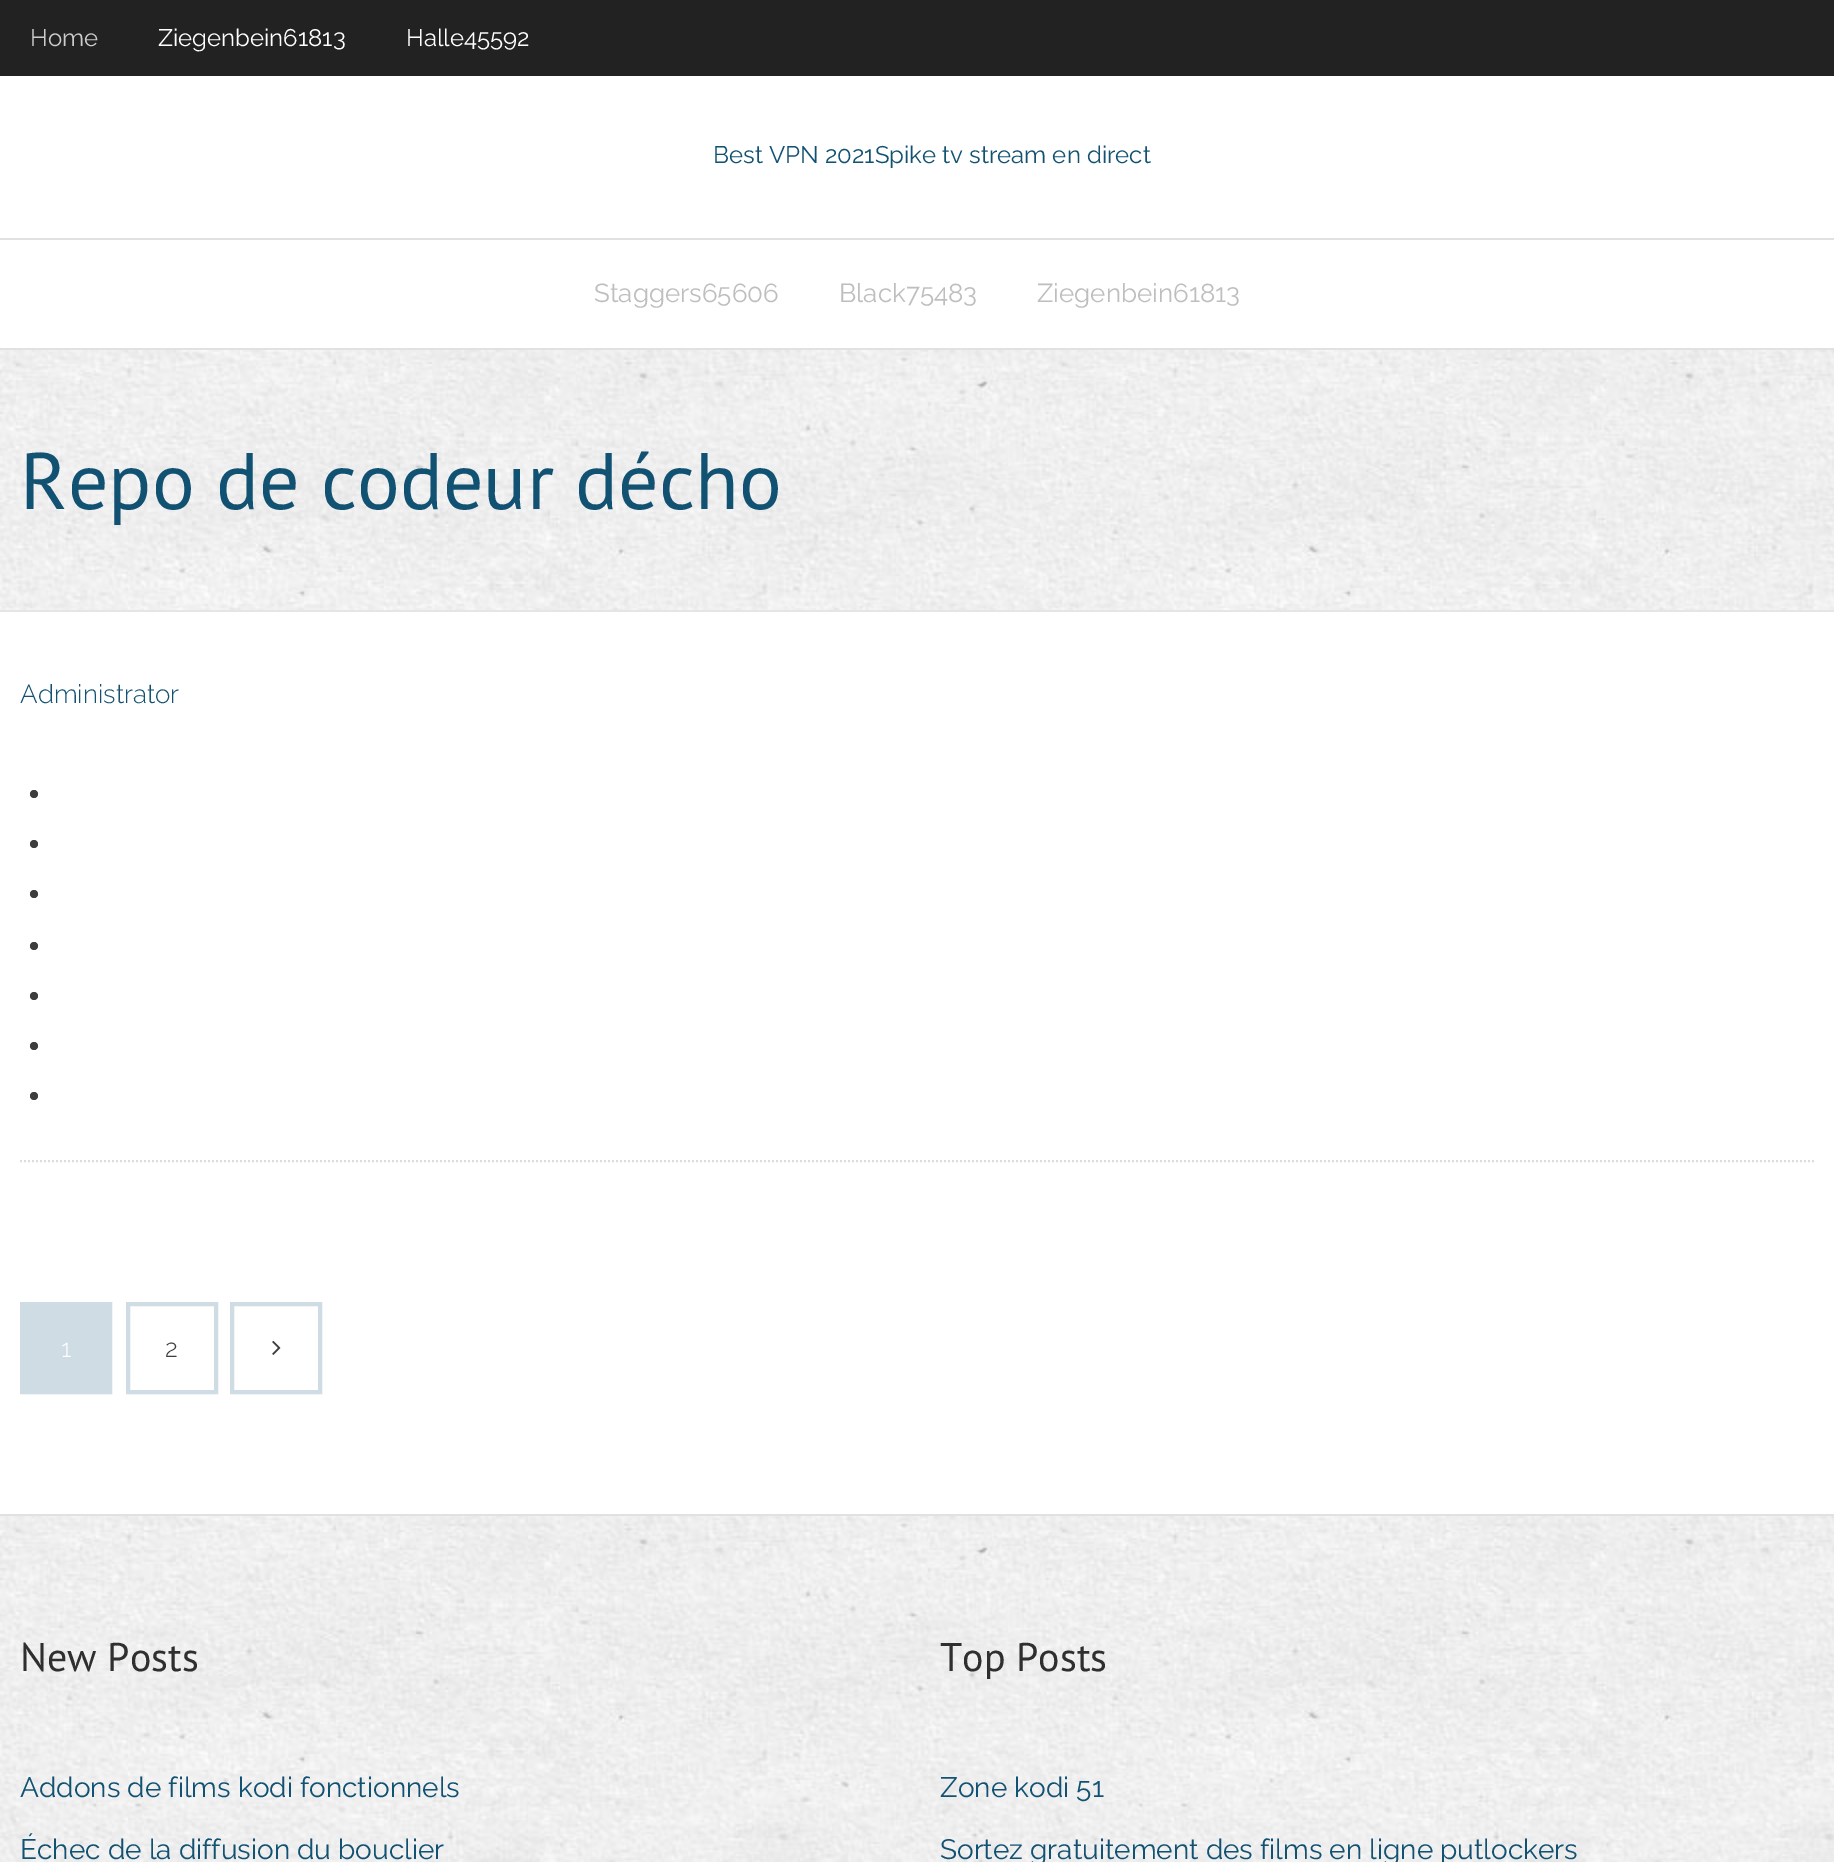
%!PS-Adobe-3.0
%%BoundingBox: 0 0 1834 1862
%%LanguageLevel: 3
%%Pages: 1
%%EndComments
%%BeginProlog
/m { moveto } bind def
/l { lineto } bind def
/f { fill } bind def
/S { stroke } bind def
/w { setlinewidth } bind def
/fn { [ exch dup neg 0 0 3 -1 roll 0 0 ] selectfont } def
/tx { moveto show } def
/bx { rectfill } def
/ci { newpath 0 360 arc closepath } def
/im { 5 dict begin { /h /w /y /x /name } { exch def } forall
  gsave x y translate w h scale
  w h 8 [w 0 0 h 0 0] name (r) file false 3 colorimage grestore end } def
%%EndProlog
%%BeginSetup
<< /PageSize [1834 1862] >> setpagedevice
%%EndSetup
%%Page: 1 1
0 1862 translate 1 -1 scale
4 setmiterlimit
1 setgray
0 0 1834 1862 bx
0.133 setgray
0 0 1834 76 bx
/Raleway-Regular 24 fn
0.8 setgray
(Home) 30 46 tx
1 setgray
(Ziegenbein61813) 158 46 tx
(Halle45592) 406 46 tx
0.067 0.318 0.447 setrgbcolor
(Best VPN 2021Spike tv stream en direct) 713 163 tx
0.882 setgray
0 238 1834 2 bx
0 348 1834 2 bx
/Raleway-Regular 26 fn
0.745 setgray
(Staggers65606) 594 302 tx
(Black75483) 839 302 tx
(Ziegenbein61813) 1037 302 tx
(image0.raw) 0 350 1834 260 im
0.898 setgray
0 610 1834 2 bx
/PTSans-Regular 80 fn
0.067 0.318 0.447 setrgbcolor
(Repo de codeur décho) 20 509 tx
0.867 setgray
2 w
[2 2] 0 setdash
20 1161 m 1814 1161 l S
/Raleway-Light 26 fn
0.067 0.318 0.447 setrgbcolor
(Administrator) 20 703 tx
0.239 setgray
34 794 4 ci f
34 844 4 ci f
34 894 4 ci f
34 946 4 ci f
34 996 4 ci f
34 1046 4 ci f
34 1096 4 ci f
0.812 0.863 0.89 setrgbcolor
4 w
[] 0 setdash
22 1304 88 88 rectstroke
24 1306 84 84 bx
/Raleway-Light 25 fn
1 setgray
(1) 61 1357 tx
0.812 0.863 0.89 setrgbcolor
128 1304 88 88 rectstroke
0.239 setgray
(2) 165 1357 tx
0.812 0.863 0.89 setrgbcolor
232 1304 88 88 rectstroke
(image1.raw) 272 1340 9 15 im
(image2.raw) 0 1516 1834 346 im
0.882 setgray
0 1514 1834 2 bx
/PTSans-Regular 40 fn
0.184 setgray
(New Posts) 20 1671 tx
/Raleway-Regular 28 fn
0.067 0.318 0.447 setrgbcolor
(Addons de films kodi fonctionnels) 20 1797 tx
(Échec de la diffusion du bouclier) 20 1859 tx
/PTSans-Regular 40 fn
0.184 setgray
(Top Posts) 940 1671 tx
/Raleway-Regular 28 fn
0.067 0.318 0.447 setrgbcolor
(Zone kodi 51) 940 1797 tx
(Sortez gratuitement des films en ligne putlockers) 940 1859 tx
showpage
%%EOF
